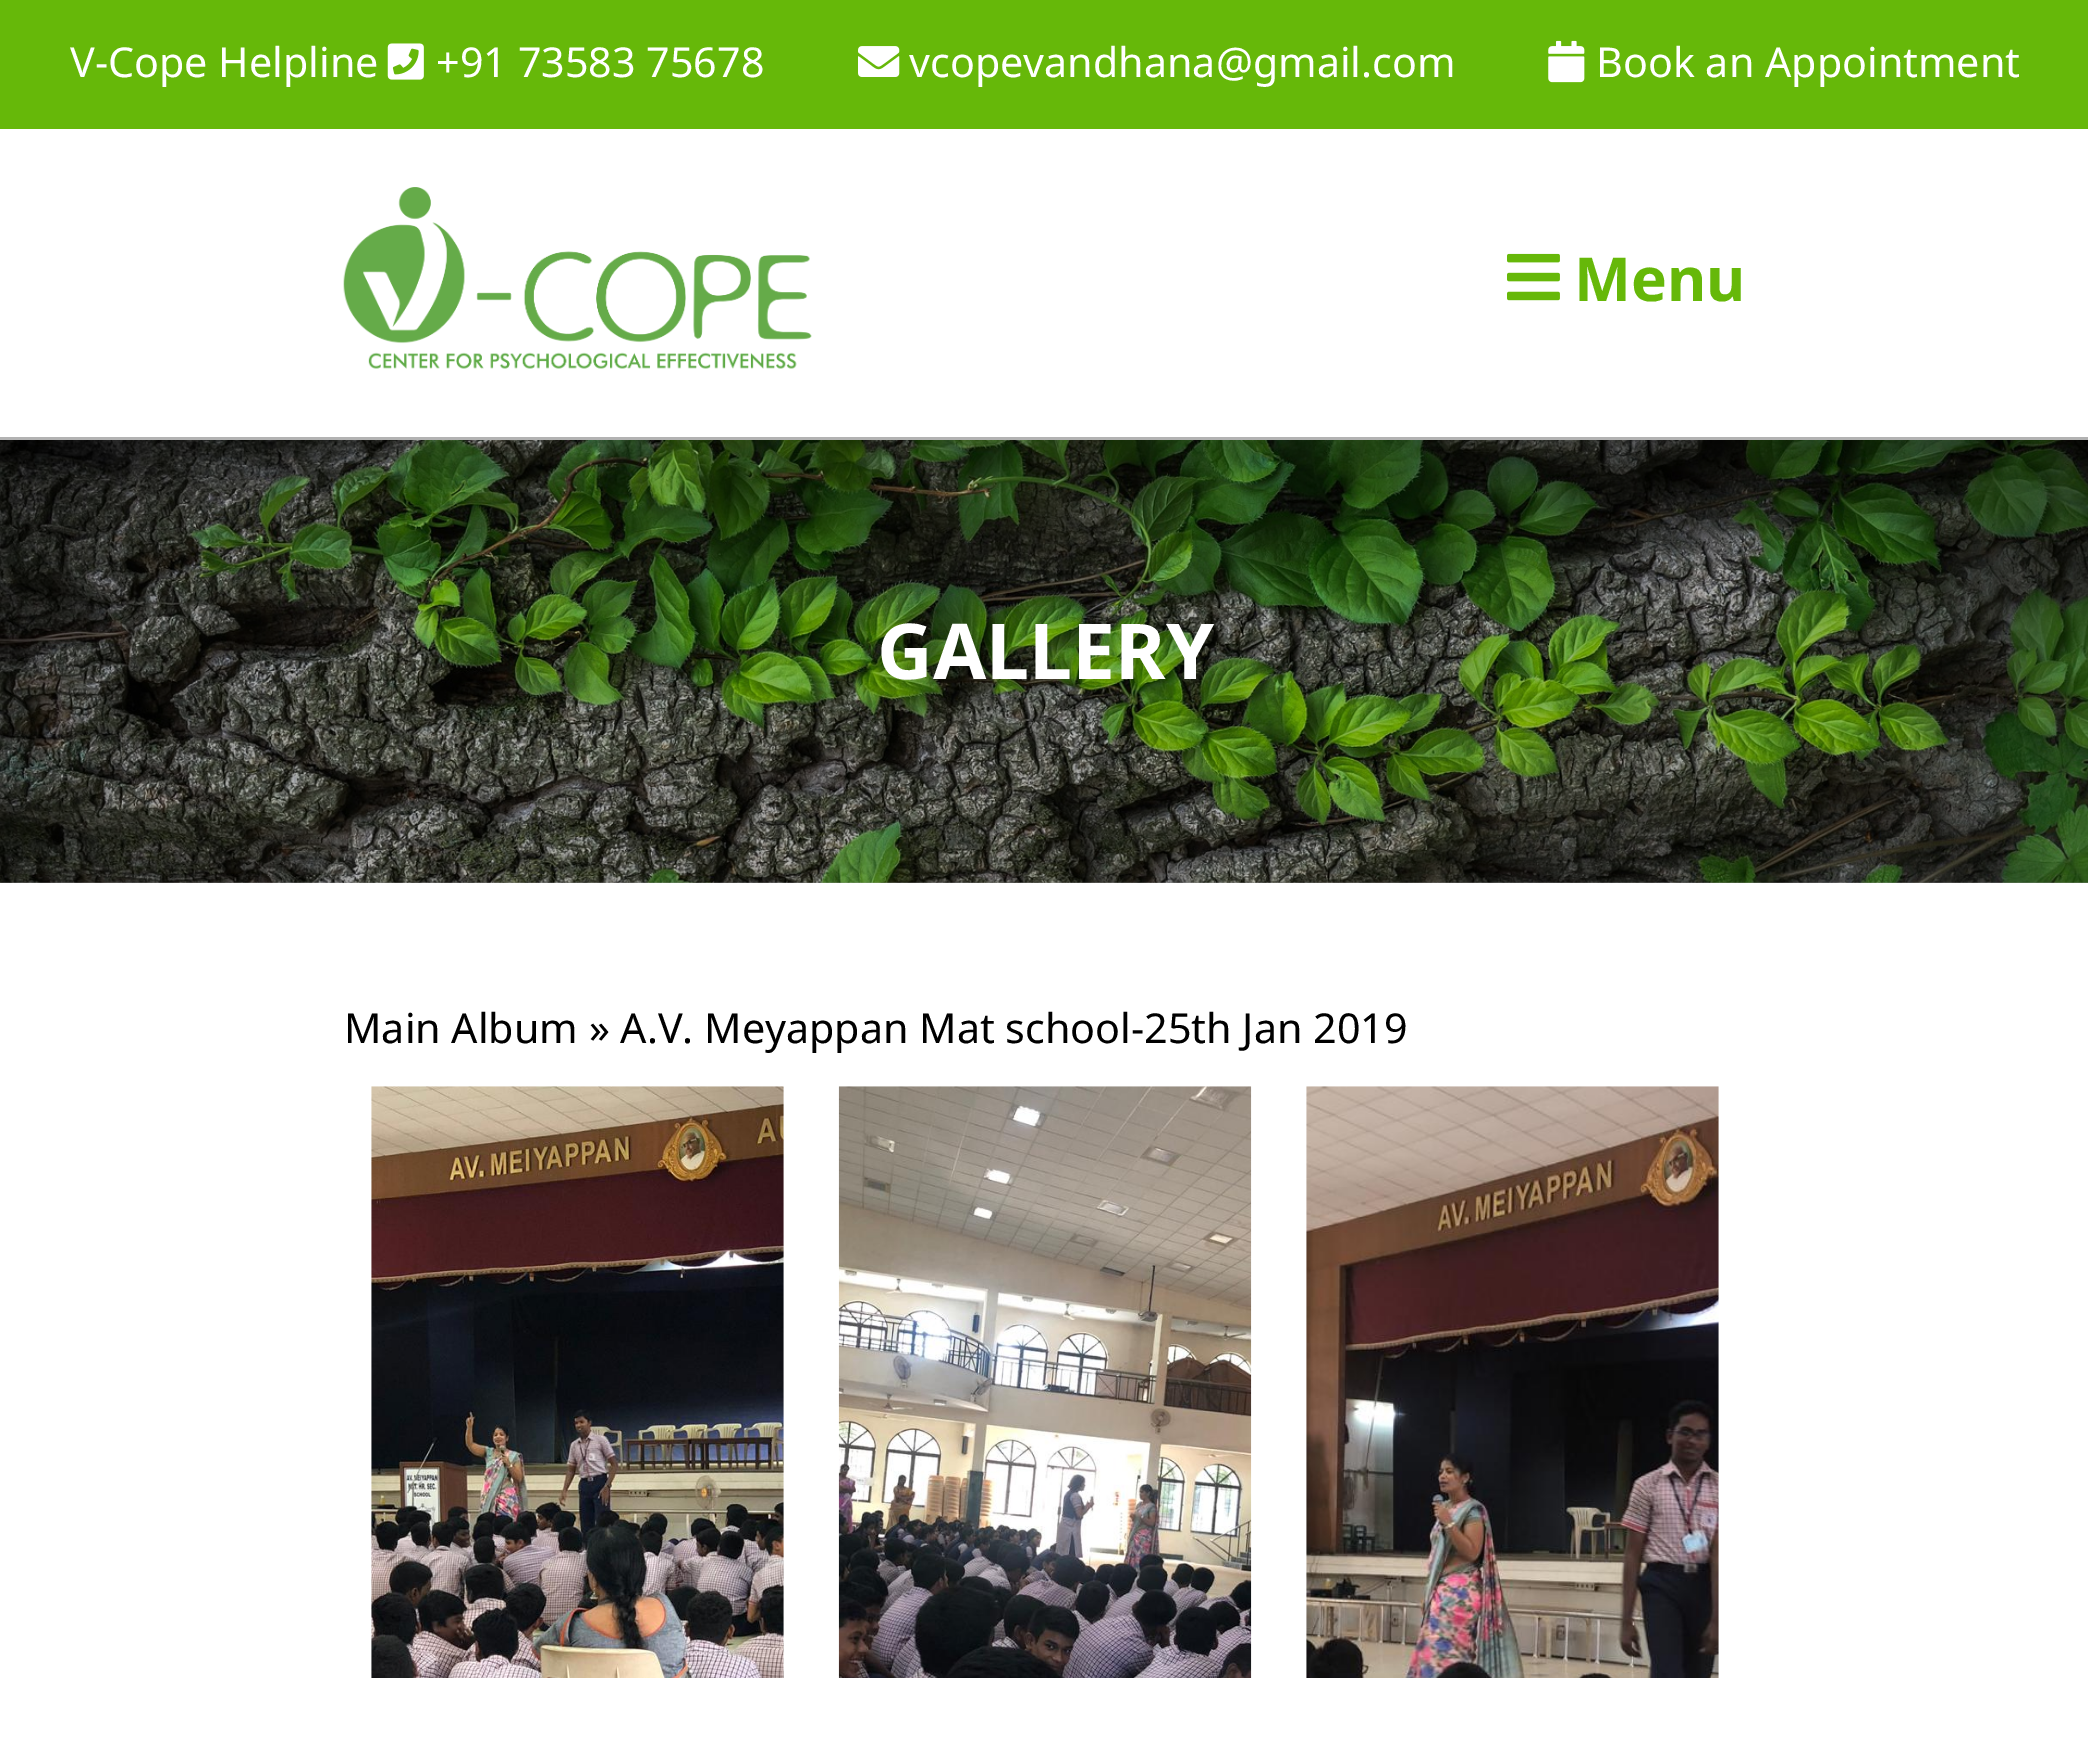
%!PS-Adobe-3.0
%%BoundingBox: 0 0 2088 1741
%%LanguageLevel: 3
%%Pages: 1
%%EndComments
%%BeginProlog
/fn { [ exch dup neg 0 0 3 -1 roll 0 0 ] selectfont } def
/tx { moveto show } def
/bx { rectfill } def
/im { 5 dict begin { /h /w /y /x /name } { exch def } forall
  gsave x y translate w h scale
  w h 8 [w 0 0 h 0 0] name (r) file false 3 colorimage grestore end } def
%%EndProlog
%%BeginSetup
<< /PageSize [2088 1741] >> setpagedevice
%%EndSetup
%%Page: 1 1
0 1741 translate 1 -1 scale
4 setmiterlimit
1 setgray
0 0 2088 1741 bx
0.698 setgray
0 437 2088 3 bx
0.4 0.722 0.035 setrgbcolor
0 0 2088 129 bx
/NotoSans-Regular 41.25 fn
1 setgray
(V-Cope Helpline) 70 77 tx
(image0.raw) 387 43 37 37 im
(+91 73583 75678) 436 77 tx
(image1.raw) 858 46 42 31 im
(vcopevandhana@gmail.com) 909 77 tx
(image2.raw) 1548 40 37 43 im
(Book an Appointment) 1596 77 tx
(image3.raw) 343 187 469 182 im
(image4.raw) 1507 253 53 48 im
/NotoSans-Bold 60.5 fn
0.4 0.722 0.035 setrgbcolor
(Menu) 1574 301 tx
(image5.raw) 0 440 2088 443 im
/NotoSans-Bold 77 fn
1 setgray
(GALLERY) 877 679 tx
/NotoSans-Regular 41.25 fn
0 setgray
(Main Album » A.V. Meyappan Mat school-25th Jan 2019) 344 1043 tx
(image6.raw) 371 1086 413 592 im
(image7.raw) 838 1086 414 592 im
(image8.raw) 1306 1086 413 592 im
showpage
%%EOF
